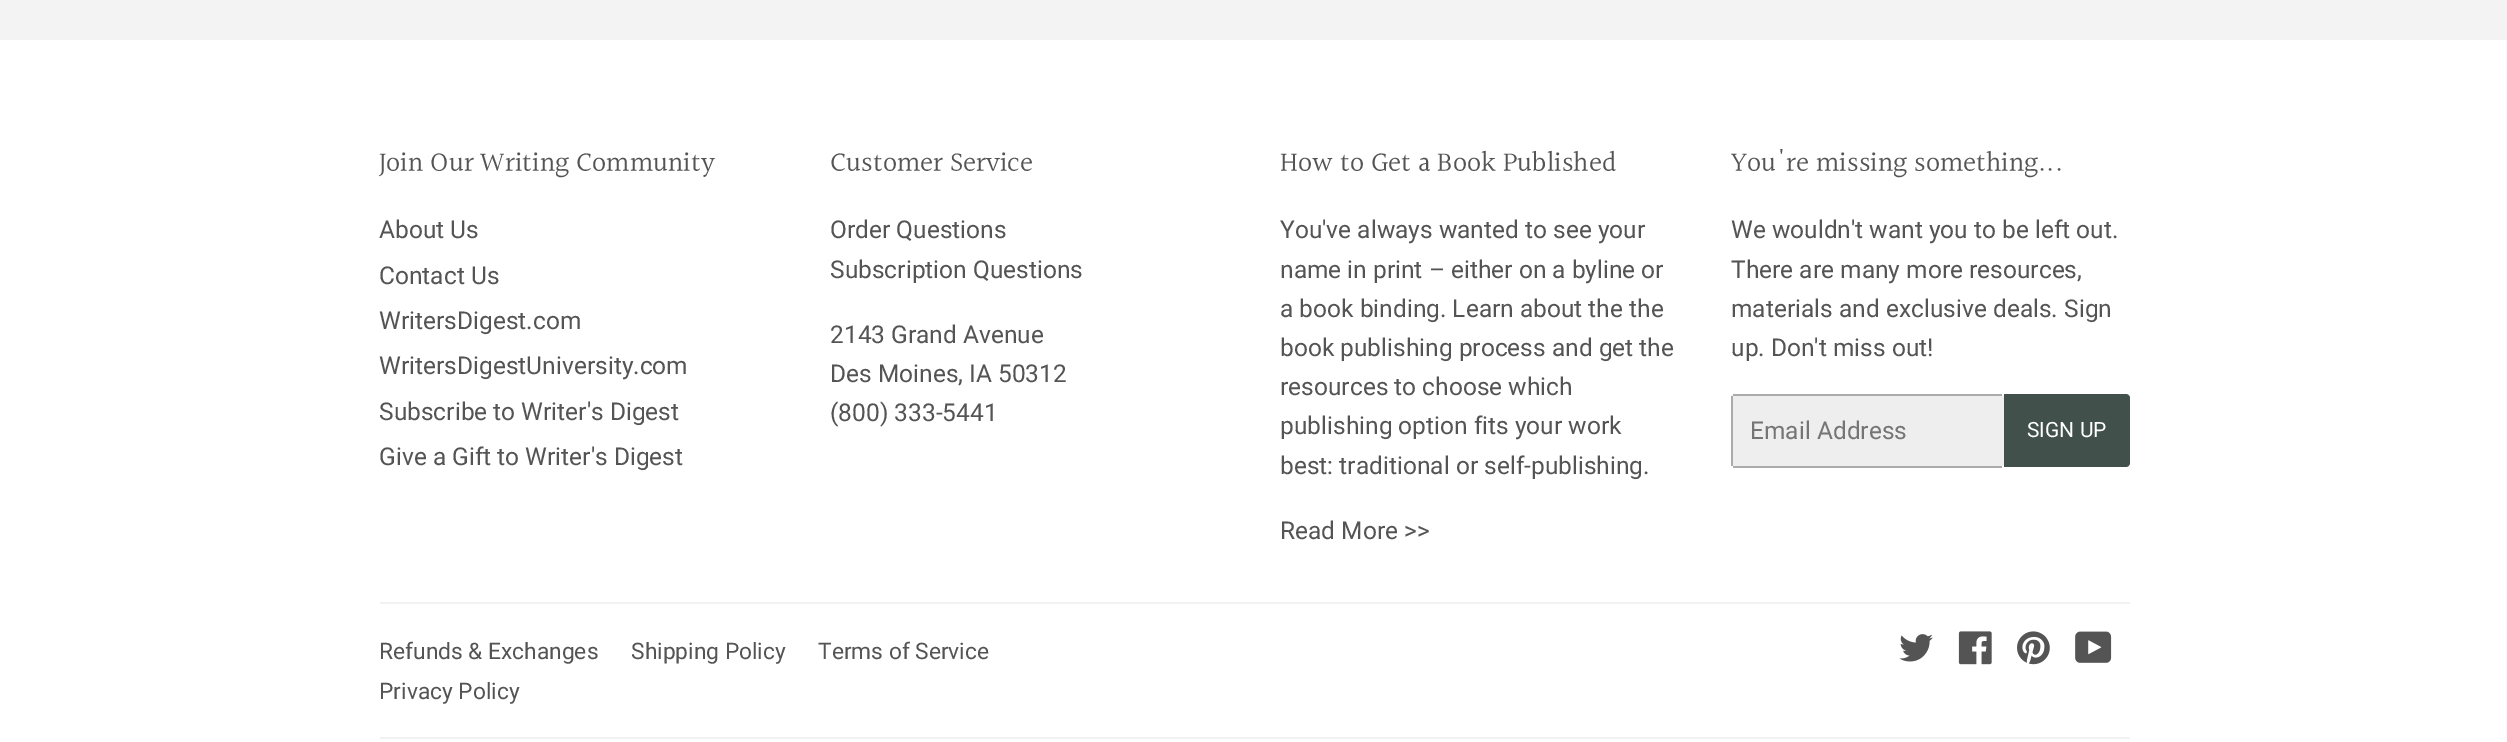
%!PS-Adobe-3.0
%%BoundingBox: 0 0 2507 742
%%LanguageLevel: 3
%%Pages: 1
%%EndComments
%%BeginProlog
/m { moveto } bind def
/l { lineto } bind def
/c { curveto } bind def
/h { closepath } bind def
/f { fill } bind def
/fn { [ exch dup neg 0 0 3 -1 roll 0 0 ] selectfont } def
/tx { moveto show } def
/bx { rectfill } def
/rr { 5 dict begin { /r /h /w /y /x } { exch def } forall
  x r add y moveto x w add y 2 copy h add r arct x w add y h add x 1 index r arct
  x y h add x y r arct x y 2 copy exch w add exch r arct closepath end } def
/im { 5 dict begin { /h /w /y /x /name } { exch def } forall
  gsave x y translate w h scale
  w h 8 [w 0 0 h 0 0] name (r) file false 3 colorimage grestore end } def
%%EndProlog
%%BeginSetup
<< /PageSize [2507 742] >> setpagedevice
%%EndSetup
%%Page: 1 1
0 742 translate 1 -1 scale
4 setmiterlimit
0.953 setgray
0 0 2507 742 bx
1 setgray
0 40 2507 702 bx
/Halant-Regular 27.75 fn
0.329 setgray
(Join Our Writing Community) 379 172 tx
/Roboto-Regular 24.5 fn
(About Us) 379 238 tx
(Contact Us) 379 284 tx
(WritersDigest.com) 379 329 tx
(WritersDigestUniversity.com) 379 374 tx
(Subscribe to Writer's Digest) 379 420 tx
(Give a Gift to Writer's Digest) 379 465 tx
/Halant-Regular 27.75 fn
(Customer Service) 830 172 tx
/Roboto-Regular 24.5 fn
(Order Questions) 830 238 tx
(Subscription Questions) 830 278 tx
(2143 Grand Avenue) 830 343 tx
(Des Moines, IA 50312) 830 382 tx
(\(800\) 333-5441) 830 421 tx
/Halant-Regular 27.75 fn
(How to Get a Book Published) 1280 172 tx
/Roboto-Regular 24.5 fn
(You've always wanted to see your) 1280 238 tx
(name in print – either on a byline or) 1280 278 tx
(a book binding. Learn about the the) 1280 317 tx
(book publishing process and get the) 1280 356 tx
(resources to choose which) 1280 395 tx
(publishing option fits your work) 1280 434 tx
(best: traditional or self-publishing.) 1280 474 tx
(Read More >>) 1280 539 tx
/Halant-Regular 27.75 fn
(You're missing something...) 1731 172 tx
/Roboto-Regular 24.5 fn
(We wouldn't want you to be left out.) 1731 238 tx
(There are many more resources,) 1731 278 tx
(materials and exclusive deals. Sign) 1731 317 tx
(up. Don't miss out!) 1731 356 tx
0.933 setgray
1731 394 273 73 4 rr f
0.671 setgray
1733 394 269 2 bx
1733 466 269 2 bx
1731 396 2 70 bx
0.459 setgray
(Email Address) 1750 439 tx
0.259 0.314 0.294 setrgbcolor
2004 394 m 2126 394 l 2128 394 2130 396 2130 398 c 2130 463 l 2130 465 2128 467 2126 467 c 2004 467 l h f
/Roboto-Regular 21 fn
1 setgray
(SIGN UP) 2027 437 tx
0.949 setgray
380 602 1750 2 bx
/Roboto-Regular 22.75 fn
0.329 setgray
(Refunds & Exchanges) 379 659 tx
(Shipping Policy) 631 659 tx
(Terms of Service) 818 659 tx
(Privacy Policy) 379 699 tx
(image0.raw) 1899 634 34 28 im
(image1.raw) 1958 631 34 34 im
(image2.raw) 2017 631 33 34 im
(image3.raw) 2075 631 37 32 im
0.949 setgray
380 737 1750 2 bx
showpage
%%EOF
